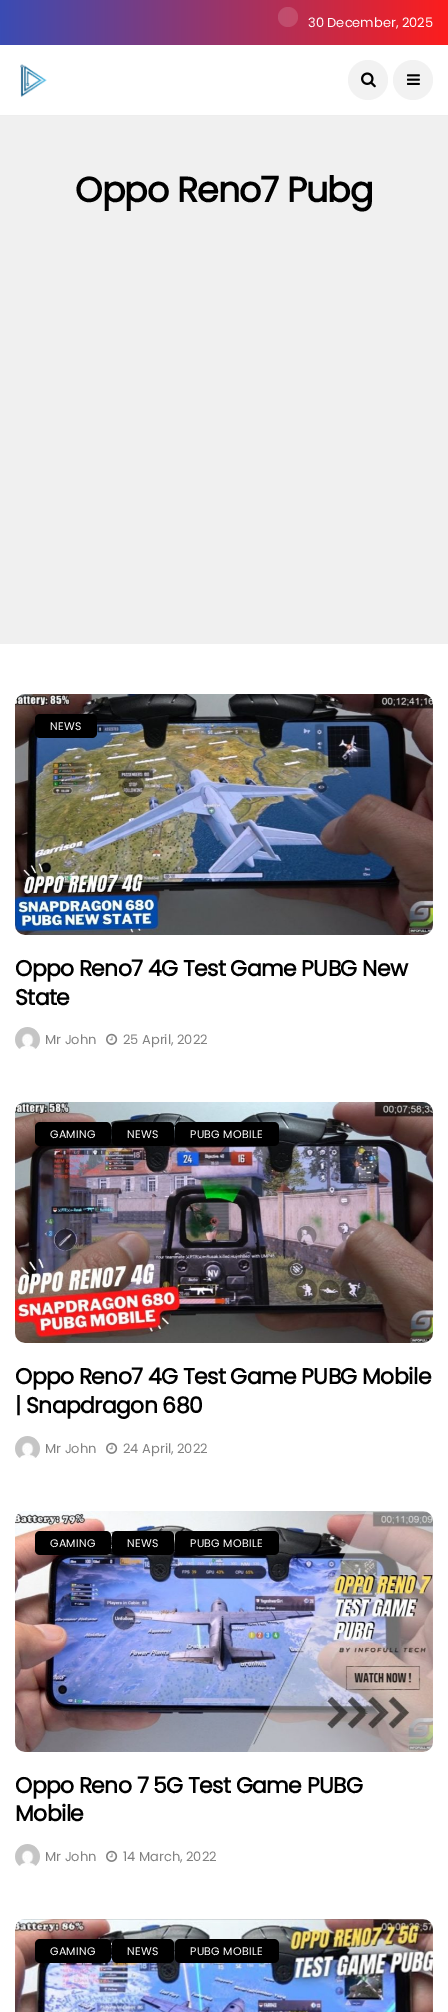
%!PS-Adobe-3.0
%%BoundingBox: 0 0 448 2012
%%LanguageLevel: 3
%%Pages: 1
%%EndComments
%%BeginProlog
/m { moveto } bind def
/l { lineto } bind def
/h { closepath } bind def
/f { fill } bind def
/q { gsave } bind def
/Q { grestore } bind def
/fn { [ exch dup neg 0 0 3 -1 roll 0 0 ] selectfont } def
/tx { moveto show } def
/bx { rectfill } def
/al { dup .setfillconstantalpha .setstrokeconstantalpha } def
/ci { newpath 0 360 arc closepath } def
/rr { 5 dict begin { /r /h /w /y /x } { exch def } forall
  x r add y moveto x w add y 2 copy h add r arct x w add y h add x 1 index r arct
  x y h add x y r arct x y 2 copy exch w add exch r arct closepath end } def
/im { 5 dict begin { /h /w /y /x /name } { exch def } forall
  gsave x y translate w h scale
  w h 8 [w 0 0 h 0 0] name (r) file false 3 colorimage grestore end } def
%%EndProlog
%%BeginSetup
<< /PageSize [448 2012] /PageUsesTransparency true >> setpagedevice
%%EndSetup
%%Page: 1 1
0 .pushpdf14devicefilter
0 2012 translate 1 -1 scale
4 setmiterlimit
1 setgray
0 0 448 2012 bx
q 0 0 m 448 0 l 448 45 l 0 45 l h clip newpath
<< /ShadingType 2 /ColorSpace /DeviceRGB /Coords [0 23 448 22] /Extend [true true] /Function << /FunctionType 2 /Domain [0 1] /C0 [0.227 0.298 0.706] /C1 [0.992 0.114 0.114] /N 1 >> >> shfill Q
0.15 al
288 17 10 ci f
/Poppins-Regular 13 fn
1 al
(30 December, 2025) 308 27 tx
0.933 setgray
0 115 448 1 bx
(image0.raw) 20 64 27 33 im
0.949 setgray
368 80 20 ci f
(image1.raw) 361 72 15 16 im
413 80 20 ci f
(image2.raw) 407 74 13 11 im
0.941 setgray
0 116 448 528 bx
/Poppins-Bold 35 fn
0 setgray
75 202 m -1 0 (Oppo Reno7 Pubg) ashow
(image3.raw) 15 694 418 241 im
35 714 62 24 5 rr f
/Poppins-Regular 11 fn
1 setgray
50 730 m 0.25 0 (NEWS) ashow
/Poppins-Bold 22 fn
0 setgray
15 976 m -0.65 0 (Oppo Reno7 4G Test Game PUBG New) ashow
15 1005 m -0.65 0 (State) ashow
(image4.raw) 15 1027 25 22 im
/Poppins-Regular 13 fn
0.506 setgray
(Mr John) 45 1044 tx
(image5.raw) 106 1033 12 12 im
(25 April, 2022) 123 1044 tx
(image6.raw) 15 1102 418 241 im
0 setgray
35 1122 76 24 5 rr f
/Poppins-Regular 11 fn
1 setgray
50 1138 m 0.25 0 (GAMING) ashow
0 setgray
112 1122 62 24 5 rr f
1 setgray
127 1138 m 0.25 0 (NEWS) ashow
0 setgray
175 1122 104 24 5 rr f
1 setgray
190 1138 m 0.25 0 (PUBG MOBILE) ashow
/Poppins-Bold 22 fn
0 setgray
15 1384 m -0.65 0 (Oppo Reno7 4G Test Game PUBG Mobile) ashow
15 1413 m -0.65 0 (| Snapdragon 680) ashow
(image4.raw) 15 1436 25 22 im
/Poppins-Regular 13 fn
0.506 setgray
(Mr John) 45 1453 tx
(image5.raw) 106 1442 12 12 im
(24 April, 2022) 123 1453 tx
(image7.raw) 15 1511 418 241 im
0 setgray
35 1531 76 24 5 rr f
/Poppins-Regular 11 fn
1 setgray
50 1547 m 0.25 0 (GAMING) ashow
0 setgray
112 1531 62 24 5 rr f
1 setgray
127 1547 m 0.25 0 (NEWS) ashow
0 setgray
175 1531 104 24 5 rr f
1 setgray
190 1547 m 0.25 0 (PUBG MOBILE) ashow
/Poppins-Bold 22 fn
0 setgray
15 1793 m -0.65 0 (Oppo Reno 7 5G Test Game PUBG) ashow
15 1821 m -0.65 0 (Mobile) ashow
(image4.raw) 15 1844 25 22 im
/Poppins-Regular 13 fn
0.506 setgray
(Mr John) 45 1861 tx
(image5.raw) 106 1850 12 12 im
(14 March, 2022) 123 1861 tx
(image8.raw) 15 1919 418 93 im
0 setgray
35 1939 76 24 5 rr f
/Poppins-Regular 11 fn
1 setgray
50 1955 m 0.25 0 (GAMING) ashow
0 setgray
112 1939 62 24 5 rr f
1 setgray
127 1955 m 0.25 0 (NEWS) ashow
0 setgray
175 1939 104 24 5 rr f
1 setgray
190 1955 m 0.25 0 (PUBG MOBILE) ashow
.poppdf14devicefilter showpage
%%EOF
